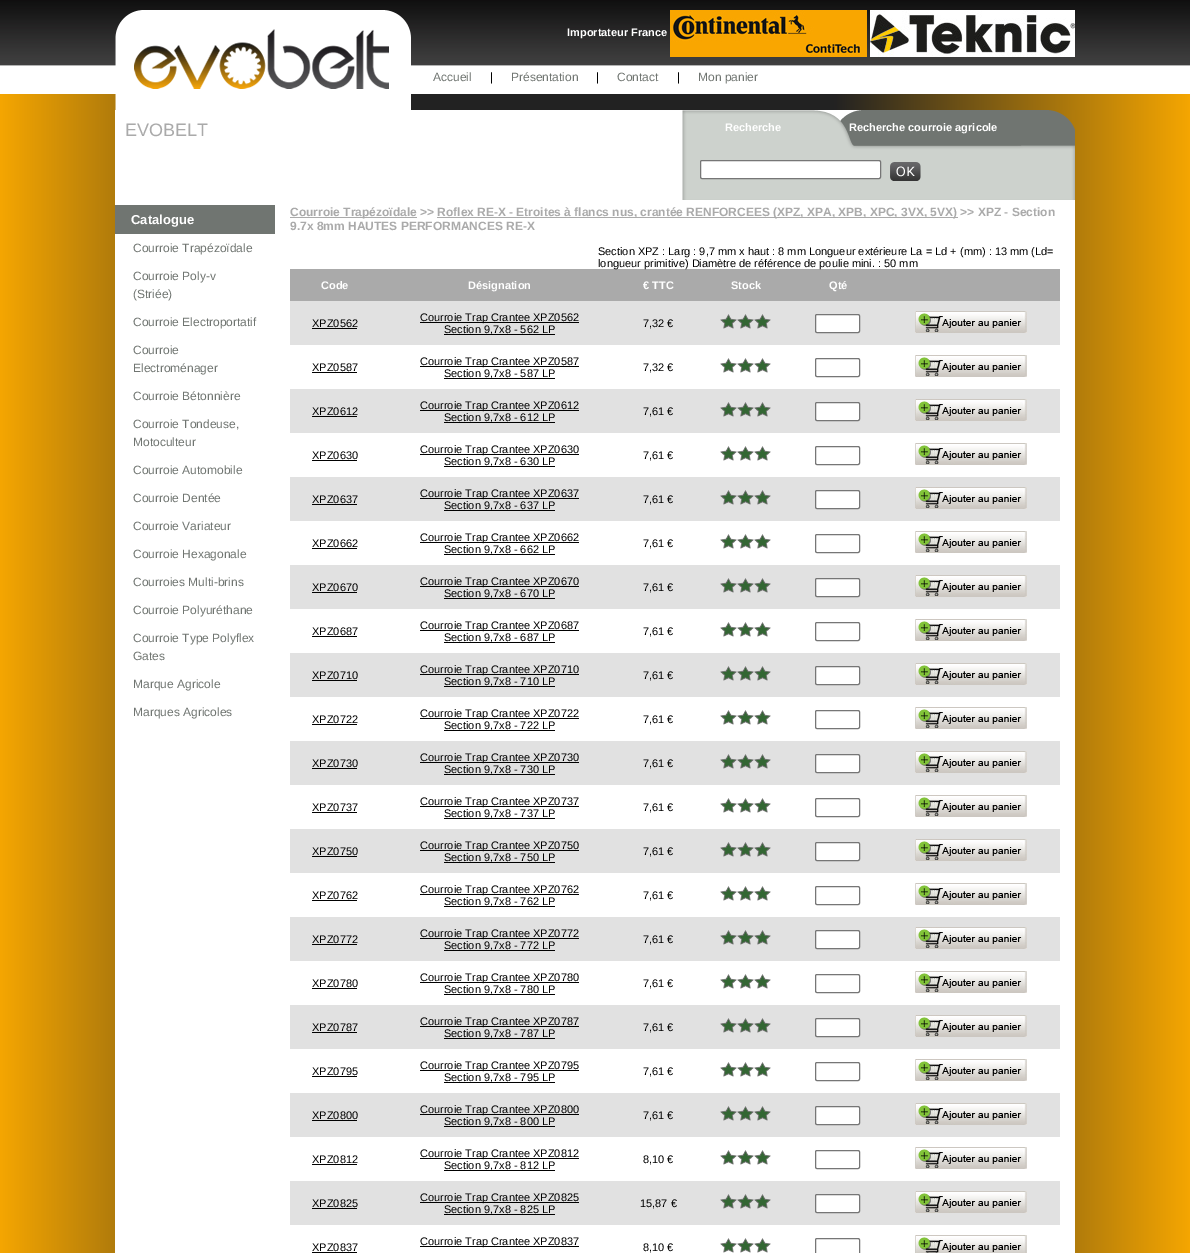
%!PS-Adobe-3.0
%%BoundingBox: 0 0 1190 1253
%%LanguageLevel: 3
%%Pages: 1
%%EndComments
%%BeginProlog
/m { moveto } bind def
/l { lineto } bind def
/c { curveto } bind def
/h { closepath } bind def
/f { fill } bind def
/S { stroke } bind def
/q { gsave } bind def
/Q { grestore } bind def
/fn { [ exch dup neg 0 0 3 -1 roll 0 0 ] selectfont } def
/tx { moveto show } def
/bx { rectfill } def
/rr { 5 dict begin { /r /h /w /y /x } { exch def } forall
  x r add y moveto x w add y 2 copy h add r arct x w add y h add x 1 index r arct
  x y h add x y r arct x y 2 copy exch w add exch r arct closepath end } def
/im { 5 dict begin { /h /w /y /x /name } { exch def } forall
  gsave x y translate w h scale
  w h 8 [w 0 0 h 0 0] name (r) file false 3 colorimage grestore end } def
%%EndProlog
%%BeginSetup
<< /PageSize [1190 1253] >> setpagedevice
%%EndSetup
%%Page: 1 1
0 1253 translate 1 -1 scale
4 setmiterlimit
1 setgray
0 0 1190 1253 bx
q 0 94 m 1190 94 l 1190 1253 l 0 1253 l h clip newpath
<< /ShadingType 2 /ColorSpace /DeviceRGB /Coords [0 774 1190 774] /Extend [true true] /Function << /FunctionType 3 /Domain [0 1] /Functions [<< /FunctionType 2 /Domain [0 1] /C0 [0.961 0.651 0.004] /C1 [0.133 0.133 0.133] /N 1 >> << /FunctionType 2 /Domain [0 1] /C0 [0.133 0.133 0.133] /C1 [0.133 0.133 0.133] /N 1 >> << /FunctionType 2 /Domain [0 1] /C0 [0.133 0.133 0.133] /C1 [0.961 0.651 0.004] /N 1 >>] /Bounds [0.3 0.7] /Encode [0 1 0 1 0 1] >> >> shfill Q
(image0.raw) 0 0 1190 94 im
(image1.raw) 115 10 296 100 im
/LiberationSans-Bold 11 fn
(Importateur France) 567 36 tx
(image2.raw) 670 10 197 47 im
(image3.raw) 870 10 205 47 im
/LiberationSans-Regular 12 fn
0.439 0.459 0.443 setrgbcolor
(Accueil) 433 81 tx
0 setgray
(|) 490 81 tx
0.439 0.459 0.443 setrgbcolor
(Présentation) 511 81 tx
0 setgray
(|) 596 81 tx
0.439 0.459 0.443 setrgbcolor
(Contact) 617 81 tx
0 setgray
(|) 677 81 tx
0.439 0.459 0.443 setrgbcolor
(Mon panier) 698 81 tx
1 setgray
115 110 m 1040 110 l 1059.5 110 1075 125.5 1075 145 c 1075 190 l 115 190 l h f
(image6.raw) 840 110 235 36 im
115 190 960 1063 bx
(image4.raw) 682 110 393 90 im
700.5 160.5 180 18 1.5 rr q f Q
0.463 setgray
S
(image5.raw) 890 162 31 19 im
/LiberationSans-Regular 18 fn
0.667 setgray
(EVOBELT) 125 136 tx
/LiberationSans-Bold 11 fn
1 setgray
(Recherche) 725 131 tx
(Recherche courroie agricole) 849 131 tx
0.439 0.459 0.443 setrgbcolor
115 205 160 29 bx
/LiberationSans-Bold 13 fn
1 setgray
(Catalogue) 131 224 tx
/LiberationSans-Regular 12 fn
0.439 0.459 0.443 setrgbcolor
(Courroie Trapézoïdale) 133 252 tx
(Courroie Poly-v) 133 280 tx
(\(Striée\)) 133 298 tx
(Courroie Electroportatif) 133 326 tx
(Courroie) 133 354 tx
(Electroménager) 133 372 tx
(Courroie Bétonnière) 133 400 tx
(Courroie Tondeuse,) 133 428 tx
(Motoculteur) 133 446 tx
(Courroie Automobile) 133 474 tx
(Courroie Dentée) 133 502 tx
(Courroie Variateur) 133 530 tx
(Courroie Hexagonale) 133 558 tx
(Courroies Multi-brins) 133 586 tx
(Courroie Polyuréthane) 133 614 tx
(Courroie Type Polyflex) 133 642 tx
(Gates) 133 660 tx
(Marque Agricole) 133 688 tx
(Marques Agricoles) 133 716 tx
0.667 setgray
290 217 127 1 bx
/LiberationSans-Bold 12 fn
(Courroie Trapézoïdale >> Roflex RE-X) 290 216 tx
437 217 521 1 bx
(- Etroites à flancs nus, crantée RENFORCEES \(XPZ, XPA, XPB, XPC, 3VX, 5VX\) >> XPZ - Section) 509 216 tx
(9.7x 8mm HAUTES PERFORMANCES RE-X) 290 230 tx
/LiberationSans-Regular 11 fn
0 setgray
(Section XPZ : Larg : 9,7 mm x haut : 8 mm Longueur extérieure La = Ld + \(mm\) : 13 mm \(Ld=) 598 255 tx
0.667 setgray
290 269 770 32 bx
0 setgray
(longueur primitive\) Diamètre de référence de poulie mini. : 50 mm) 598 267 tx
/LiberationSans-Bold 11 fn
1 setgray
(Code) 321 289 tx
(Désignation) 468 289 tx
(€ TTC) 643 289 tx
(Stock) 731 289 tx
(Qté) 829 289 tx
0.882 setgray
290 301 770 44 bx
/LiberationSans-Regular 11 fn
0 setgray
(XPZ0562) 312 327 tx
312 328 45 1 bx
420 322 159 1 bx
(Courroie Trap Crantee XPZ0562) 420 321 tx
444 334 111 1 bx
(Section 9,7x8 - 562 LP) 444 333 tx
(7,32 €) 643 327 tx
(image7.raw) 720 314 51 15 im
1 setgray
815.5 314.5 44 18 1.5 rr q f Q
0.463 setgray
S
(image8.raw) 915 311 112 22 im
0 setgray
(XPZ0587) 312 371 tx
312 372 45 1 bx
420 366 159 1 bx
(Courroie Trap Crantee XPZ0587) 420 365 tx
444 378 111 1 bx
(Section 9,7x8 - 587 LP) 444 377 tx
(7,32 €) 643 371 tx
(image9.raw) 720 358 51 15 im
0.463 setgray
815.5 358.5 44 18 1.5 rr S
(image8.raw) 915 355 112 22 im
0.882 setgray
290 389 770 44 bx
0 setgray
(XPZ0612) 312 415 tx
312 416 45 1 bx
420 410 159 1 bx
(Courroie Trap Crantee XPZ0612) 420 409 tx
444 422 111 1 bx
(Section 9,7x8 - 612 LP) 444 421 tx
(7,61 €) 643 415 tx
(image7.raw) 720 402 51 15 im
1 setgray
815.5 402.5 44 18 1.5 rr q f Q
0.463 setgray
S
(image8.raw) 915 399 112 22 im
0 setgray
(XPZ0630) 312 459 tx
312 460 45 1 bx
420 454 159 1 bx
(Courroie Trap Crantee XPZ0630) 420 453 tx
444 466 111 1 bx
(Section 9,7x8 - 630 LP) 444 465 tx
(7,61 €) 643 459 tx
(image9.raw) 720 446 51 15 im
0.463 setgray
815.5 446.5 44 18 1.5 rr S
(image8.raw) 915 443 112 22 im
0.882 setgray
290 477 770 44 bx
0 setgray
(XPZ0637) 312 503 tx
312 504 45 1 bx
420 498 159 1 bx
(Courroie Trap Crantee XPZ0637) 420 497 tx
444 510 111 1 bx
(Section 9,7x8 - 637 LP) 444 509 tx
(7,61 €) 643 503 tx
(image7.raw) 720 490 51 15 im
1 setgray
815.5 490.5 44 18 1.5 rr q f Q
0.463 setgray
S
(image8.raw) 915 487 112 22 im
0 setgray
(XPZ0662) 312 547 tx
312 548 45 1 bx
420 542 159 1 bx
(Courroie Trap Crantee XPZ0662) 420 541 tx
444 554 111 1 bx
(Section 9,7x8 - 662 LP) 444 553 tx
(7,61 €) 643 547 tx
(image9.raw) 720 534 51 15 im
0.463 setgray
815.5 534.5 44 18 1.5 rr S
(image8.raw) 915 531 112 22 im
0.882 setgray
290 565 770 44 bx
0 setgray
(XPZ0670) 312 591 tx
312 592 45 1 bx
420 586 159 1 bx
(Courroie Trap Crantee XPZ0670) 420 585 tx
444 598 111 1 bx
(Section 9,7x8 - 670 LP) 444 597 tx
(7,61 €) 643 591 tx
(image7.raw) 720 578 51 15 im
1 setgray
815.5 578.5 44 18 1.5 rr q f Q
0.463 setgray
S
(image8.raw) 915 575 112 22 im
0 setgray
(XPZ0687) 312 635 tx
312 636 45 1 bx
420 630 159 1 bx
(Courroie Trap Crantee XPZ0687) 420 629 tx
444 642 111 1 bx
(Section 9,7x8 - 687 LP) 444 641 tx
(7,61 €) 643 635 tx
(image9.raw) 720 622 51 15 im
0.463 setgray
815.5 622.5 44 18 1.5 rr S
(image8.raw) 915 619 112 22 im
0.882 setgray
290 653 770 44 bx
0 setgray
(XPZ0710) 312 679 tx
312 680 45 1 bx
420 674 159 1 bx
(Courroie Trap Crantee XPZ0710) 420 673 tx
444 686 111 1 bx
(Section 9,7x8 - 710 LP) 444 685 tx
(7,61 €) 643 679 tx
(image7.raw) 720 666 51 15 im
1 setgray
815.5 666.5 44 18 1.5 rr q f Q
0.463 setgray
S
(image8.raw) 915 663 112 22 im
0 setgray
(XPZ0722) 312 723 tx
312 724 45 1 bx
420 718 159 1 bx
(Courroie Trap Crantee XPZ0722) 420 717 tx
444 730 111 1 bx
(Section 9,7x8 - 722 LP) 444 729 tx
(7,61 €) 643 723 tx
(image9.raw) 720 710 51 15 im
0.463 setgray
815.5 710.5 44 18 1.5 rr S
(image8.raw) 915 707 112 22 im
0.882 setgray
290 741 770 44 bx
0 setgray
(XPZ0730) 312 767 tx
312 768 45 1 bx
420 762 159 1 bx
(Courroie Trap Crantee XPZ0730) 420 761 tx
444 774 111 1 bx
(Section 9,7x8 - 730 LP) 444 773 tx
(7,61 €) 643 767 tx
(image7.raw) 720 754 51 15 im
1 setgray
815.5 754.5 44 18 1.5 rr q f Q
0.463 setgray
S
(image8.raw) 915 751 112 22 im
0 setgray
(XPZ0737) 312 811 tx
312 812 45 1 bx
420 806 159 1 bx
(Courroie Trap Crantee XPZ0737) 420 805 tx
444 818 111 1 bx
(Section 9,7x8 - 737 LP) 444 817 tx
(7,61 €) 643 811 tx
(image9.raw) 720 798 51 15 im
0.463 setgray
815.5 798.5 44 18 1.5 rr S
(image8.raw) 915 795 112 22 im
0.882 setgray
290 829 770 44 bx
0 setgray
(XPZ0750) 312 855 tx
312 856 45 1 bx
420 850 159 1 bx
(Courroie Trap Crantee XPZ0750) 420 849 tx
444 862 111 1 bx
(Section 9,7x8 - 750 LP) 444 861 tx
(7,61 €) 643 855 tx
(image7.raw) 720 842 51 15 im
1 setgray
815.5 842.5 44 18 1.5 rr q f Q
0.463 setgray
S
(image8.raw) 915 839 112 22 im
0 setgray
(XPZ0762) 312 899 tx
312 900 45 1 bx
420 894 159 1 bx
(Courroie Trap Crantee XPZ0762) 420 893 tx
444 906 111 1 bx
(Section 9,7x8 - 762 LP) 444 905 tx
(7,61 €) 643 899 tx
(image9.raw) 720 886 51 15 im
0.463 setgray
815.5 886.5 44 18 1.5 rr S
(image8.raw) 915 883 112 22 im
0.882 setgray
290 917 770 44 bx
0 setgray
(XPZ0772) 312 943 tx
312 944 45 1 bx
420 938 159 1 bx
(Courroie Trap Crantee XPZ0772) 420 937 tx
444 950 111 1 bx
(Section 9,7x8 - 772 LP) 444 949 tx
(7,61 €) 643 943 tx
(image7.raw) 720 930 51 15 im
1 setgray
815.5 930.5 44 18 1.5 rr q f Q
0.463 setgray
S
(image8.raw) 915 927 112 22 im
0 setgray
(XPZ0780) 312 987 tx
312 988 45 1 bx
420 982 159 1 bx
(Courroie Trap Crantee XPZ0780) 420 981 tx
444 994 111 1 bx
(Section 9,7x8 - 780 LP) 444 993 tx
(7,61 €) 643 987 tx
(image9.raw) 720 974 51 15 im
0.463 setgray
815.5 974.5 44 18 1.5 rr S
(image8.raw) 915 971 112 22 im
0.882 setgray
290 1005 770 44 bx
0 setgray
(XPZ0787) 312 1031 tx
312 1032 45 1 bx
420 1026 159 1 bx
(Courroie Trap Crantee XPZ0787) 420 1025 tx
444 1038 111 1 bx
(Section 9,7x8 - 787 LP) 444 1037 tx
(7,61 €) 643 1031 tx
(image7.raw) 720 1018 51 15 im
1 setgray
815.5 1018.5 44 18 1.5 rr q f Q
0.463 setgray
S
(image8.raw) 915 1015 112 22 im
0 setgray
(XPZ0795) 312 1075 tx
312 1076 45 1 bx
420 1070 159 1 bx
(Courroie Trap Crantee XPZ0795) 420 1069 tx
444 1082 111 1 bx
(Section 9,7x8 - 795 LP) 444 1081 tx
(7,61 €) 643 1075 tx
(image9.raw) 720 1062 51 15 im
0.463 setgray
815.5 1062.5 44 18 1.5 rr S
(image8.raw) 915 1059 112 22 im
0.882 setgray
290 1093 770 44 bx
0 setgray
(XPZ0800) 312 1119 tx
312 1120 45 1 bx
420 1114 159 1 bx
(Courroie Trap Crantee XPZ0800) 420 1113 tx
444 1126 111 1 bx
(Section 9,7x8 - 800 LP) 444 1125 tx
(7,61 €) 643 1119 tx
(image7.raw) 720 1106 51 15 im
1 setgray
815.5 1106.5 44 18 1.5 rr q f Q
0.463 setgray
S
(image8.raw) 915 1103 112 22 im
0 setgray
(XPZ0812) 312 1163 tx
312 1164 45 1 bx
420 1158 159 1 bx
(Courroie Trap Crantee XPZ0812) 420 1157 tx
444 1170 111 1 bx
(Section 9,7x8 - 812 LP) 444 1169 tx
(8,10 €) 643 1163 tx
(image9.raw) 720 1150 51 15 im
0.463 setgray
815.5 1150.5 44 18 1.5 rr S
(image8.raw) 915 1147 112 22 im
0.882 setgray
290 1181 770 44 bx
0 setgray
(XPZ0825) 312 1207 tx
312 1208 45 1 bx
420 1202 159 1 bx
(Courroie Trap Crantee XPZ0825) 420 1201 tx
444 1214 111 1 bx
(Section 9,7x8 - 825 LP) 444 1213 tx
(15,87 €) 640 1207 tx
(image7.raw) 720 1194 51 15 im
1 setgray
815.5 1194.5 44 18 1.5 rr q f Q
0.463 setgray
S
(image8.raw) 915 1191 112 22 im
0 setgray
(XPZ0837) 312 1251 tx
312 1252 45 1 bx
420 1246 159 1 bx
(Courroie Trap Crantee XPZ0837) 420 1245 tx
(8,10 €) 643 1251 tx
(image9.raw) 720 1238 51 15 im
0.463 setgray
815.5 1238.5 44 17 1.5 rr S
(image10.raw) 915 1235 112 18 im
showpage
%%EOF
